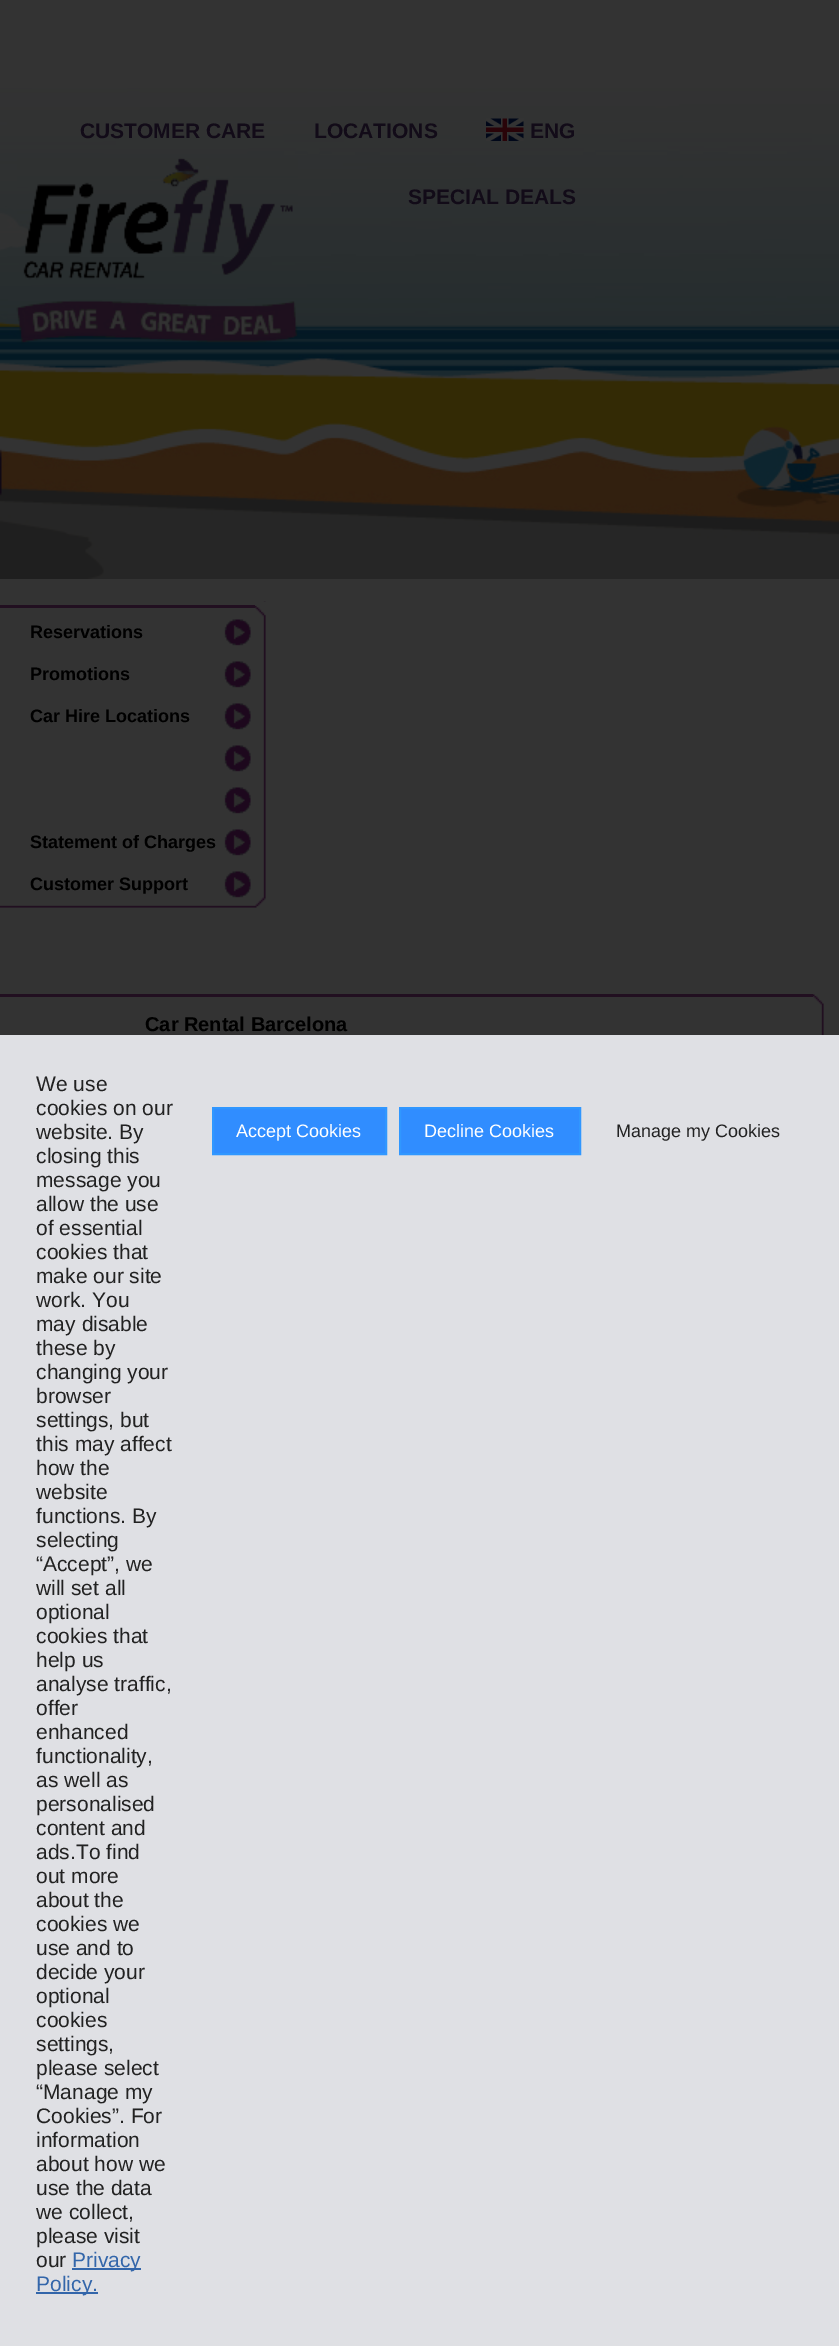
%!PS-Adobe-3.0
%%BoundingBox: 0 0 839 2346
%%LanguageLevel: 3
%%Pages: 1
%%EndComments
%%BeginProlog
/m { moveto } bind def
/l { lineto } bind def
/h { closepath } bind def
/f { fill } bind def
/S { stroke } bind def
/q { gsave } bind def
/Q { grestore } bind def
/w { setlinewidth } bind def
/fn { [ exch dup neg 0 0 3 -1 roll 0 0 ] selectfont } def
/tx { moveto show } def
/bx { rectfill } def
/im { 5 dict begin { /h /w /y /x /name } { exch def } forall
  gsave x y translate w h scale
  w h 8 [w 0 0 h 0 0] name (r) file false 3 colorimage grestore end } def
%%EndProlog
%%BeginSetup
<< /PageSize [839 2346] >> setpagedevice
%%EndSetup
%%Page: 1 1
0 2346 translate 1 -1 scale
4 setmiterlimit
0.2 setgray
0 0 839 2346 bx
(image0.raw) 0 88 839 491 im
/LiberationSans-Bold 21 fn
0.071 0.043 0.094 setrgbcolor
(CUSTOMER CARE) 80 138 tx
(LOCATIONS) 314 138 tx
(image1.raw) 486 118 38 23 im
(ENG) 530 138 tx
(SPECIAL DEALS) 408 204 tx
(image2.raw) 16 157 282 187 im
(image4.raw) 261 601 9 303 im
(image3.raw) 255 601 11 16 im
0.129 0.059 0.125 setrgbcolor
0 605 255 3 bx
(image5.raw) 224 619 27 27 im
/LiberationSans-Bold 18 fn
0 setgray
(Reservations) 30 638 tx
(image5.raw) 224 661 27 27 im
(Promotions) 30 680 tx
(image5.raw) 224 703 27 27 im
(Car Hire Locations) 30 722 tx
(image5.raw) 224 745 27 27 im
(image5.raw) 224 787 27 27 im
(image5.raw) 224 829 27 27 im
(Statement of Charges) 30 848 tx
(image5.raw) 224 871 27 27 im
(Customer Support) 30 890 tx
(image7.raw) 0 903 270 9 im
(image6.raw) 255 897 15 11 im
(image9.raw) 819 990 9 45 im
(image8.raw) 813 990 11 15 im
0.129 0.059 0.125 setrgbcolor
0 994 813 3 bx
/LiberationSans-Bold 20 fn
0 setgray
(Car Rental Barcelona) 145 1031 tx
0.875 0.878 0.894 setrgbcolor
0 1035 839 1311 bx
/LiberationSans-Regular 21 fn
0.133 setgray
(We use) 36 1091 tx
(cookies on our) 36 1115 tx
(website. By) 36 1139 tx
(closing this) 36 1163 tx
(message you) 36 1187 tx
(allow the use) 36 1211 tx
(of essential) 36 1235 tx
(cookies that) 36 1259 tx
(make our site) 36 1283 tx
(work. You) 36 1307 tx
(may disable) 36 1331 tx
(these by) 36 1355 tx
(changing your) 36 1379 tx
(browser) 36 1403 tx
(settings, but) 36 1427 tx
(this may affect) 36 1451 tx
(how the) 36 1475 tx
(website) 36 1499 tx
(functions. By) 36 1523 tx
(selecting) 36 1547 tx
(“Accept”, we) 36 1571 tx
(will set all) 36 1595 tx
(optional) 36 1619 tx
(cookies that) 36 1643 tx
(help us) 36 1667 tx
(analyse traffic,) 36 1691 tx
(offer) 36 1715 tx
(enhanced) 36 1739 tx
(functionality,) 36 1763 tx
(as well as) 36 1787 tx
(personalised) 36 1811 tx
(content and) 36 1835 tx
(ads.To find) 36 1859 tx
(out more) 36 1883 tx
(about the) 36 1907 tx
(cookies we) 36 1931 tx
(use and to) 36 1955 tx
(decide your) 36 1979 tx
(optional) 36 2003 tx
(cookies) 36 2027 tx
(settings,) 36 2051 tx
(please select) 36 2075 tx
(“Manage my) 36 2099 tx
(Cookies”. For) 36 2123 tx
(information) 36 2147 tx
(about how we) 36 2171 tx
(use the data) 36 2195 tx
(we collect,) 36 2219 tx
(please visit) 36 2243 tx
(our) 36 2267 tx
0.2 0.4 0.667 setrgbcolor
72 2268 69 2 bx
(Privacy) 72 2267 tx
36 2292 62 2 bx
(Policy.) 36 2291 tx
0.188 0.553 1 setrgbcolor
213 1108 m 386 1108 l 386 1154 l 213 1154 l h q f Q
0.188 0.592 1 setrgbcolor
2 w
S
/LiberationSans-Regular 18 fn
1 setgray
(Accept Cookies) 236 1137 tx
0.188 0.553 1 setrgbcolor
400 1108 m 580 1108 l 580 1154 l 400 1154 l h q f Q
0.188 0.592 1 setrgbcolor
S
1 setgray
(Decline Cookies) 424 1137 tx
0.133 setgray
(Manage my Cookies) 616 1137 tx
showpage
%%EOF
